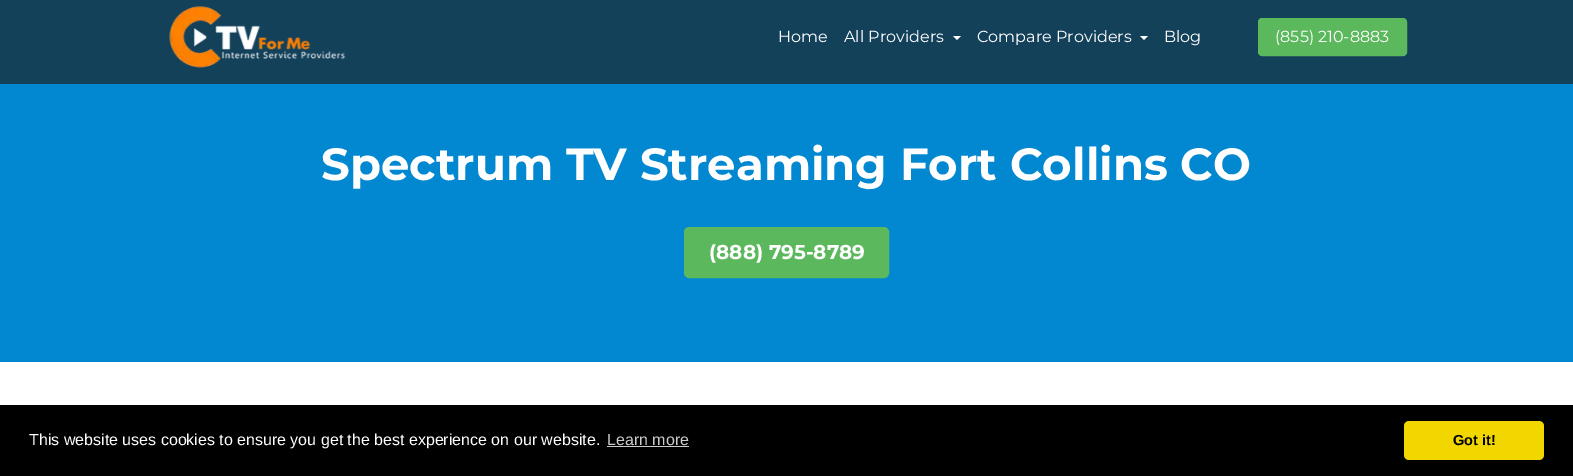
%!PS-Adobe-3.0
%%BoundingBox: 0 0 1573 476
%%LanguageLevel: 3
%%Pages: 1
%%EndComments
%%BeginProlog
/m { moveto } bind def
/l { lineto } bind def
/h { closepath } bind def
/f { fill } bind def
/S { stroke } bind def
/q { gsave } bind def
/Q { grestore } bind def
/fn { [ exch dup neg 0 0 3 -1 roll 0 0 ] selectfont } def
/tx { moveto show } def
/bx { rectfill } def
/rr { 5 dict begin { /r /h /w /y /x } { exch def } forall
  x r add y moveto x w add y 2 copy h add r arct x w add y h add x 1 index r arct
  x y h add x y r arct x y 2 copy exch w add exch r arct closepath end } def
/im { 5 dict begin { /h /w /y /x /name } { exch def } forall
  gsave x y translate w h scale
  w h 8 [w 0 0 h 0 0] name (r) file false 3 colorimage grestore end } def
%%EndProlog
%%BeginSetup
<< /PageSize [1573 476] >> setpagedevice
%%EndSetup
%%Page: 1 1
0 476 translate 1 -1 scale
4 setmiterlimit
1 setgray
0 0 1573 476 bx
0.078 0.255 0.353 setrgbcolor
0 0 1573 84 bx
(image0.raw) 169 6 177 62 im
/Montserrat-Regular 16 fn
1 setgray
(Home) 778 42 tx
(All Providers) 844 42 tx
953 36 m 961 36 l 957 40 l h f
(Compare Providers) 977 42 tx
1140 36 m 1148 36 l 1144 40 l h f
(Blog) 1164 42 tx
0.361 0.722 0.361 setrgbcolor
1258.5 18.5 148 37 3.5 rr q f Q
S
1 setgray
(\(855\) 210-8883) 1275 42 tx
0.008 0.533 0.82 setrgbcolor
0 84 1573 278 bx
/Montserrat-Bold 45 fn
1 setgray
(Spectrum TV Streaming Fort Collins CO) 321 180 tx
0.361 0.722 0.361 setrgbcolor
684.5 227.5 204 50 4.5 rr q f Q
S
/Montserrat-Bold 20 fn
1 setgray
(\(888\) 795-8789) 709 259 tx
0 setgray
0 405 1573 71 bx
/LiberationSans-Regular 16 fn
1 setgray
(This website uses cookies to ensure you get the best experience on our website.) 29 445 tx
0.8 setgray
(Learn more) 607 445 tx
607 446 82 1 bx
0.945 0.839 0 setrgbcolor
1404 421 140 39 5 rr f
/LiberationSans-Bold 14.5 fn
0 setgray
(Got it!) 1453 445 tx
showpage
%%EOF
